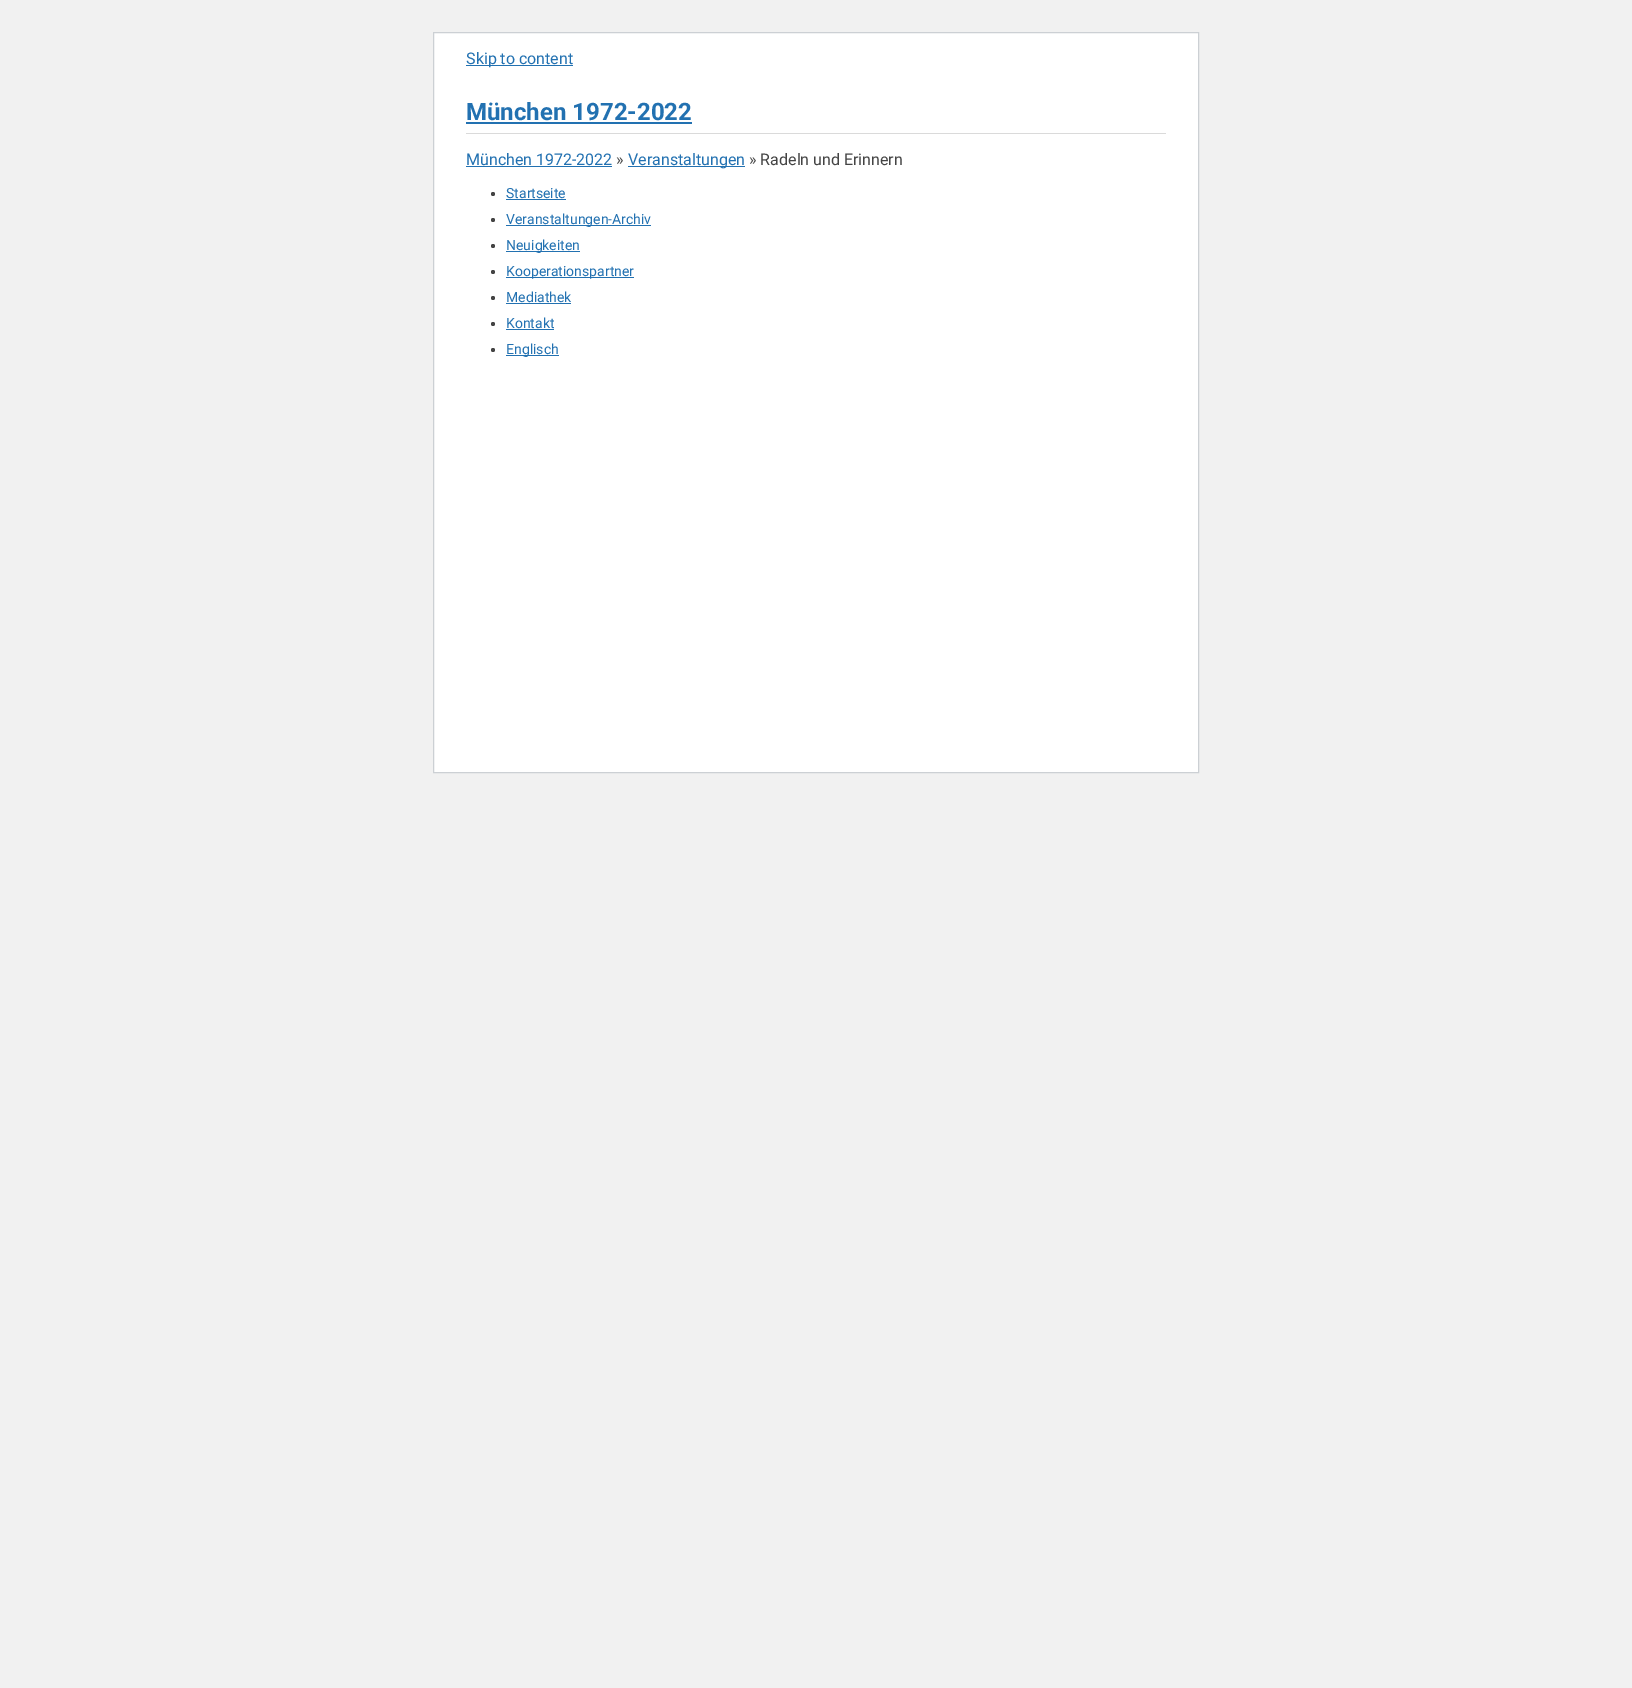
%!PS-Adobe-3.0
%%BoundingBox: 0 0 1632 1688
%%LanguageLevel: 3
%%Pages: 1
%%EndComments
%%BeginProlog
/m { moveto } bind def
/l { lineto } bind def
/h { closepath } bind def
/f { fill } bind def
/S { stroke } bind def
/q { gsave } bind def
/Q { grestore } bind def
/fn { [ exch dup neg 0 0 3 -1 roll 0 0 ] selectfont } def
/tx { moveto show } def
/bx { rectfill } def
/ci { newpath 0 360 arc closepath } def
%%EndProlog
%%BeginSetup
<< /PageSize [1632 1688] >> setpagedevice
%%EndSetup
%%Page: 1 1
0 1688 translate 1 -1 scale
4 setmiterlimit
0.945 setgray
0 0 1632 1688 bx
1 setgray
433.5 32.5 m 1198.5 32.5 l 1198.5 772.5 l 433.5 772.5 l h q f Q
0.8 0.816 0.831 setrgbcolor
S
0.133 0.443 0.694 setrgbcolor
466 65 107 1 bx
/Roboto-Regular 16 fn
(Skip to content) 466 64 tx
0.855 setgray
466 133 700 1 bx
/Roboto-Bold 24 fn
0.133 0.443 0.694 setrgbcolor
(München 1972-2022) 466 120 tx
466 122 226 2 bx
/Roboto-Regular 16 fn
(München 1972-2022) 466 165 tx
466 166 146 1 bx
0.267 setgray
(») 616 165 tx
0.133 0.443 0.694 setrgbcolor
628 166 117 1 bx
(Veranstaltungen) 628 165 tx
0.267 setgray
(» Radeln und Erinnern) 749 165 tx
493 194 2 ci f
/Roboto-Regular 14 fn
0.133 0.443 0.694 setrgbcolor
(Startseite) 506 198 tx
506 199 60 1 bx
0.267 setgray
493 220 2 ci f
0.133 0.443 0.694 setrgbcolor
506 225 145 1 bx
(Veranstaltungen-Archiv) 506 224 tx
0.267 setgray
493 246 2 ci f
0.133 0.443 0.694 setrgbcolor
506 251 74 1 bx
(Neuigkeiten) 506 250 tx
0.267 setgray
493 272 2 ci f
0.133 0.443 0.694 setrgbcolor
506 277 128 1 bx
(Kooperationspartner) 506 276 tx
0.267 setgray
493 298 2 ci f
0.133 0.443 0.694 setrgbcolor
(Mediathek) 506 302 tx
506 303 65 1 bx
0.267 setgray
493 324 2 ci f
0.133 0.443 0.694 setrgbcolor
(Kontakt) 506 328 tx
506 329 48 1 bx
0.267 setgray
493 350 2 ci f
0.133 0.443 0.694 setrgbcolor
506 355 53 1 bx
(Englisch) 506 354 tx
showpage
%%EOF
